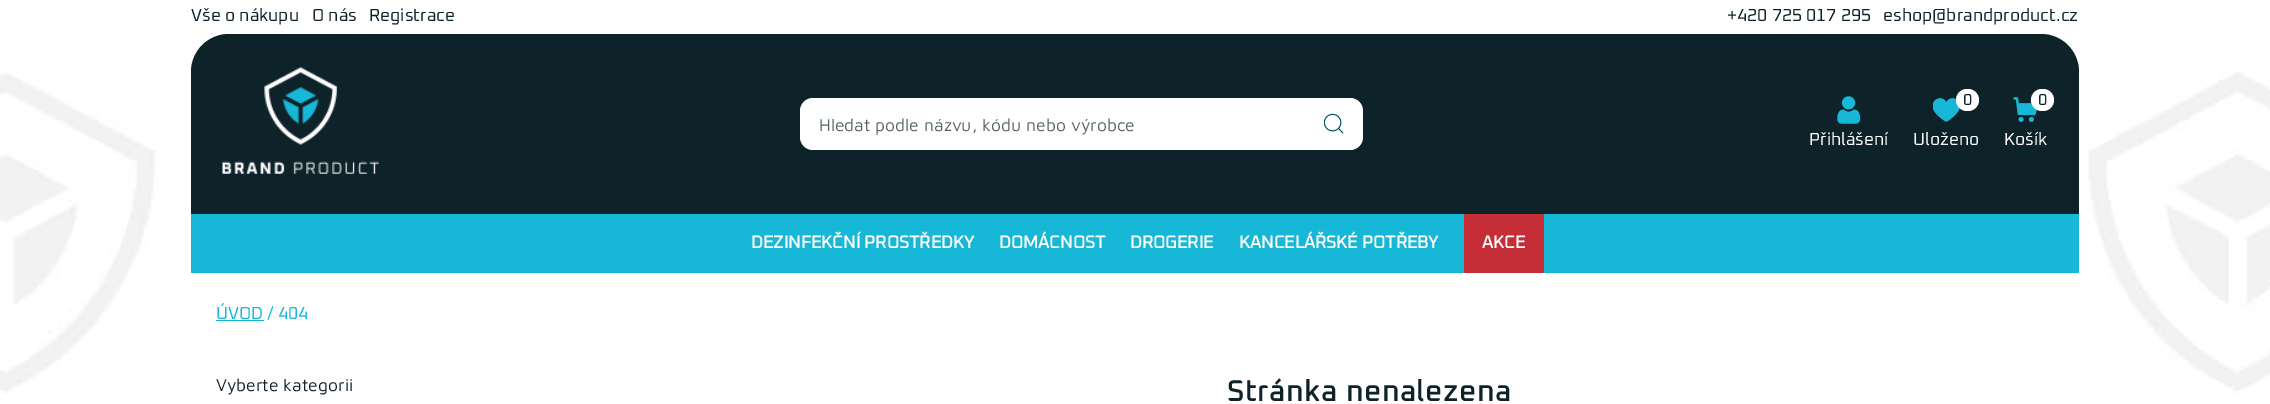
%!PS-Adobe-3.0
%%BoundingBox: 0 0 2270 404
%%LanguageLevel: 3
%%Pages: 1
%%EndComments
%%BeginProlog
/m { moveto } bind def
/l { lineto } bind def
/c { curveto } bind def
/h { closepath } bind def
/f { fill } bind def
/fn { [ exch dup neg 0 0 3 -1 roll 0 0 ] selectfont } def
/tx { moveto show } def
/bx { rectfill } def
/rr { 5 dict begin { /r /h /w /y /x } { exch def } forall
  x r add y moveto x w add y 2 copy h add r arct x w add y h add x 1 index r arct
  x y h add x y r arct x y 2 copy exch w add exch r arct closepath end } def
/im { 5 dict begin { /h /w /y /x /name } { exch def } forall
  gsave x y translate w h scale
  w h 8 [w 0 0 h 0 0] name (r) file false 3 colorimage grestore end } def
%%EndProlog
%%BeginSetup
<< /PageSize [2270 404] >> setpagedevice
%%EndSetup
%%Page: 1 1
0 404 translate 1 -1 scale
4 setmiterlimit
1 setgray
0 0 2270 404 bx
(image0.raw) 0 71 2270 323 im
/Oxanium-Regular 17.5 fn
0.055 0.133 0.161 setrgbcolor
(Vše o nákupu) 191 21 tx
(O nás) 312 21 tx
(Registrace) 369 21 tx
(+420 725 017 295) 1727 21 tx
(eshop@brandproduct.cz) 1883 21 tx
229 34 m 2041 34 l 2062 34 2079 51 2079 72 c 2079 273 l 191 273 l 191 72 l 191 51 208 34 229 34 c h f
(image1.raw) 222 67 157 107 im
1 setgray
800 98 563 52 13 rr f
/MavenPro-Regular 17.5 fn
0.337 0.392 0.412 setrgbcolor
(Hledat podle názvu, kódu nebo výrobce) 819 131 tx
(image2.raw) 1324 113 20 21 im
(image3.raw) 1837 96 24 28 im
/Oxanium-Regular 17.5 fn
1 setgray
(Přihlášení) 1809 145 tx
(image4.raw) 1933 98 27 24 im
1956 89 23 22 11 rr f
/Oxanium-Regular 16 fn
0.055 0.133 0.161 setrgbcolor
(0) 1963 105 tx
/Oxanium-Regular 17.5 fn
1 setgray
(Uloženo) 1913 145 tx
(image5.raw) 2013 97 24 25 im
2031 89 23 22 11 rr f
/Oxanium-Regular 16 fn
0.055 0.133 0.161 setrgbcolor
(0) 2038 105 tx
/Oxanium-Regular 17.5 fn
1 setgray
(Košík) 2004 145 tx
0.09 0.718 0.843 setrgbcolor
191 214 1888 59 bx
/Oxanium-Bold 17.5 fn
1 setgray
(DEZINFEKČNÍ PROSTŘEDKY) 751 248 tx
(DOMÁCNOST) 999 248 tx
(DROGERIE) 1130 248 tx
(KANCELÁŘSKÉ POTŘEBY) 1239 248 tx
0.773 0.18 0.212 setrgbcolor
1464 214 80 59 bx
1 setgray
(AKCE) 1482 248 tx
/Oxanium-Regular 17.5 fn
0.09 0.718 0.843 setrgbcolor
(ÚVOD / 404) 216 319 tx
216 320 48 1 bx
/MavenPro-Regular 17.5 fn
0.055 0.133 0.161 setrgbcolor
(Vyberte kategorii) 216 391 tx
/Oxanium-Bold 28.75 fn
1227 401 m 1.25 0 (Stránka nenalezena) ashow
showpage
%%EOF
